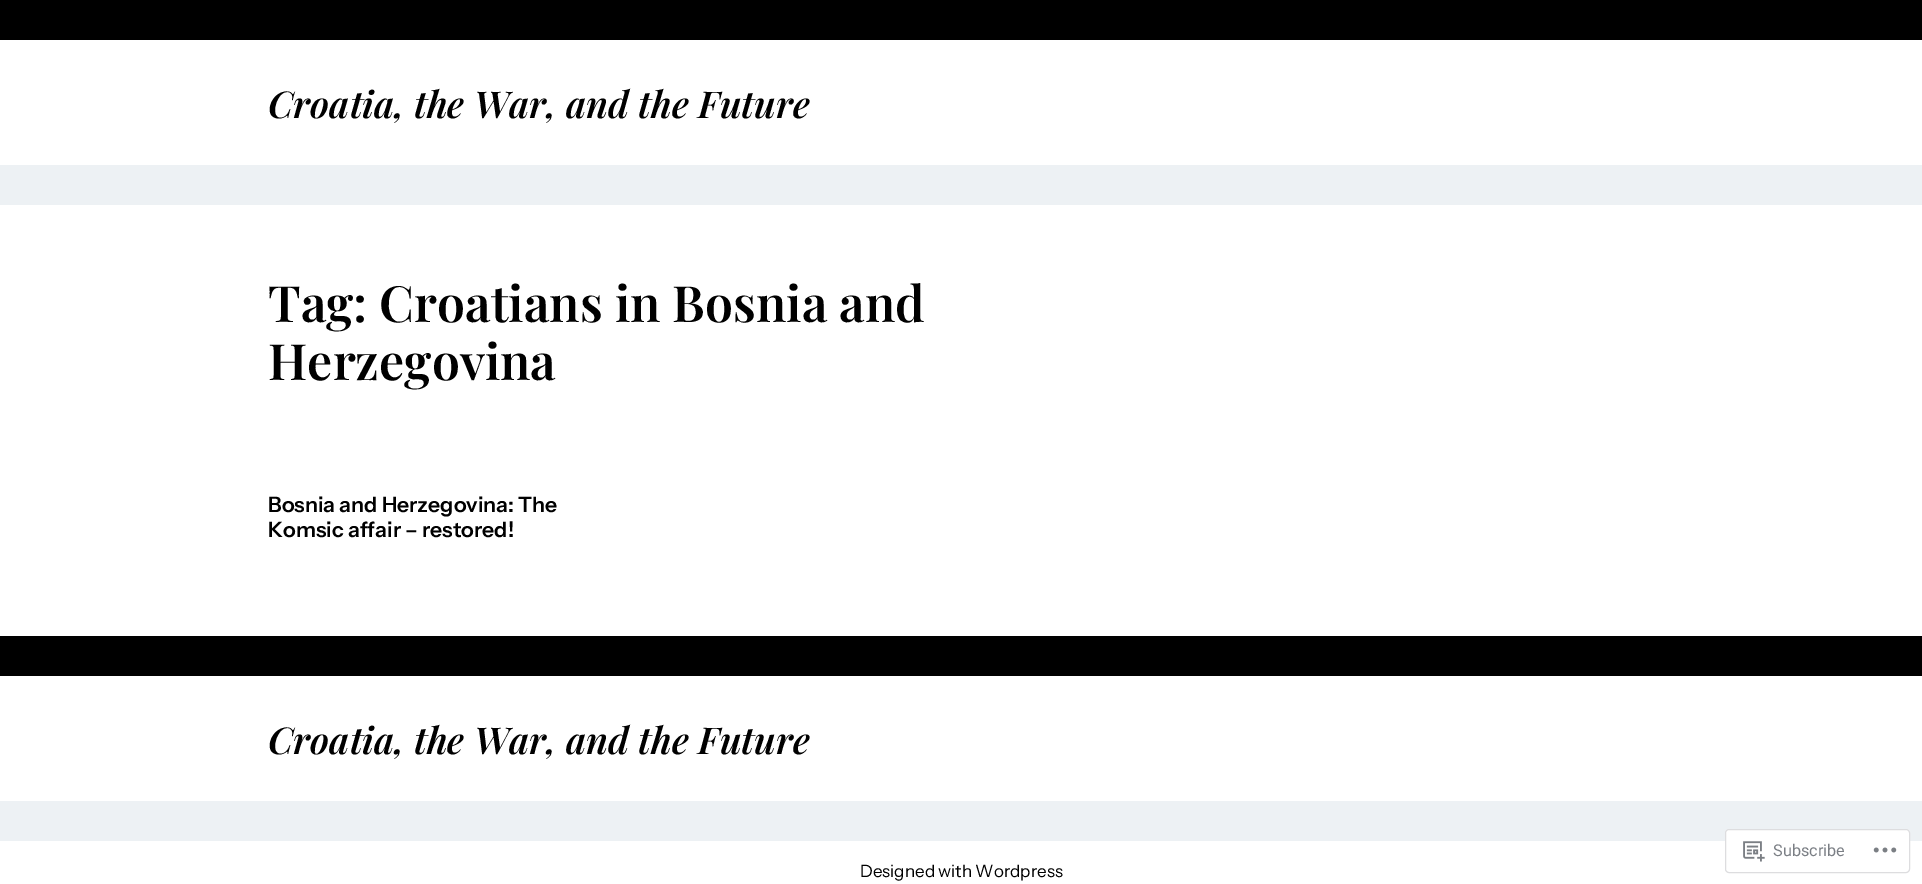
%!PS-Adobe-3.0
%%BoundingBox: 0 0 1922 884
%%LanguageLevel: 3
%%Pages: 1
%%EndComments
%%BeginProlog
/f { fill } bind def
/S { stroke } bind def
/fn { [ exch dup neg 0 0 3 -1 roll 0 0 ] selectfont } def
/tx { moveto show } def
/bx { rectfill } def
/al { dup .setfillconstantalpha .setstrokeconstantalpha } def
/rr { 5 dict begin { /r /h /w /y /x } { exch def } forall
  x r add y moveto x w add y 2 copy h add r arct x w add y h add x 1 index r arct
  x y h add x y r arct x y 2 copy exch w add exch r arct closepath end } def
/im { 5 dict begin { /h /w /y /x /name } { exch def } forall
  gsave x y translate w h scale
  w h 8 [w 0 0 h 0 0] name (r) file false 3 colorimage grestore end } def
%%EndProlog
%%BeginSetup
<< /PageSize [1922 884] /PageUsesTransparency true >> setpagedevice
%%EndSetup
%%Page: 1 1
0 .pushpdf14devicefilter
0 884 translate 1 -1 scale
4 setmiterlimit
1 setgray
0 0 1922 884 bx
0 setgray
0 0 1922 40 bx
/PlayfairDisplay-SemiBoldItalic 37 fn
(Croatia, the War, and the Future) 268 118 tx
0.929 0.945 0.957 setrgbcolor
0 165 1922 40 bx
/PlayfairDisplay-SemiBold 50 fn
0 setgray
(Tag: Croatians in Bosnia and) 268 322 tx
(Herzegovina) 268 380 tx
/InstrumentSans-SemiBold 21.25 fn
(Bosnia and Herzegovina: The) 268 512 tx
(Komsic affair – restored!) 268 537 tx
0 636 1922 40 bx
/PlayfairDisplay-SemiBoldItalic 37 fn
(Croatia, the War, and the Future) 268 754 tx
0.929 0.945 0.957 setrgbcolor
0 801 1922 40 bx
/InstrumentSans-Regular 17 fn
0 setgray
(Designed with Wordpress) 860 877 tx
0.98 al
1 setgray
1725 829 185 44 4 rr f
0.863 0.863 0.871 setrgbcolor
1725.5 829.5 184 43 3.5 rr S
1 al
(image0.raw) 1743 841 22 21 im
/Roboto-Regular 16.25 fn
0.482 0.498 0.522 setrgbcolor
(Subscribe) 1773 856 tx
(image1.raw) 1873 847 24 6 im
.poppdf14devicefilter showpage
%%EOF
